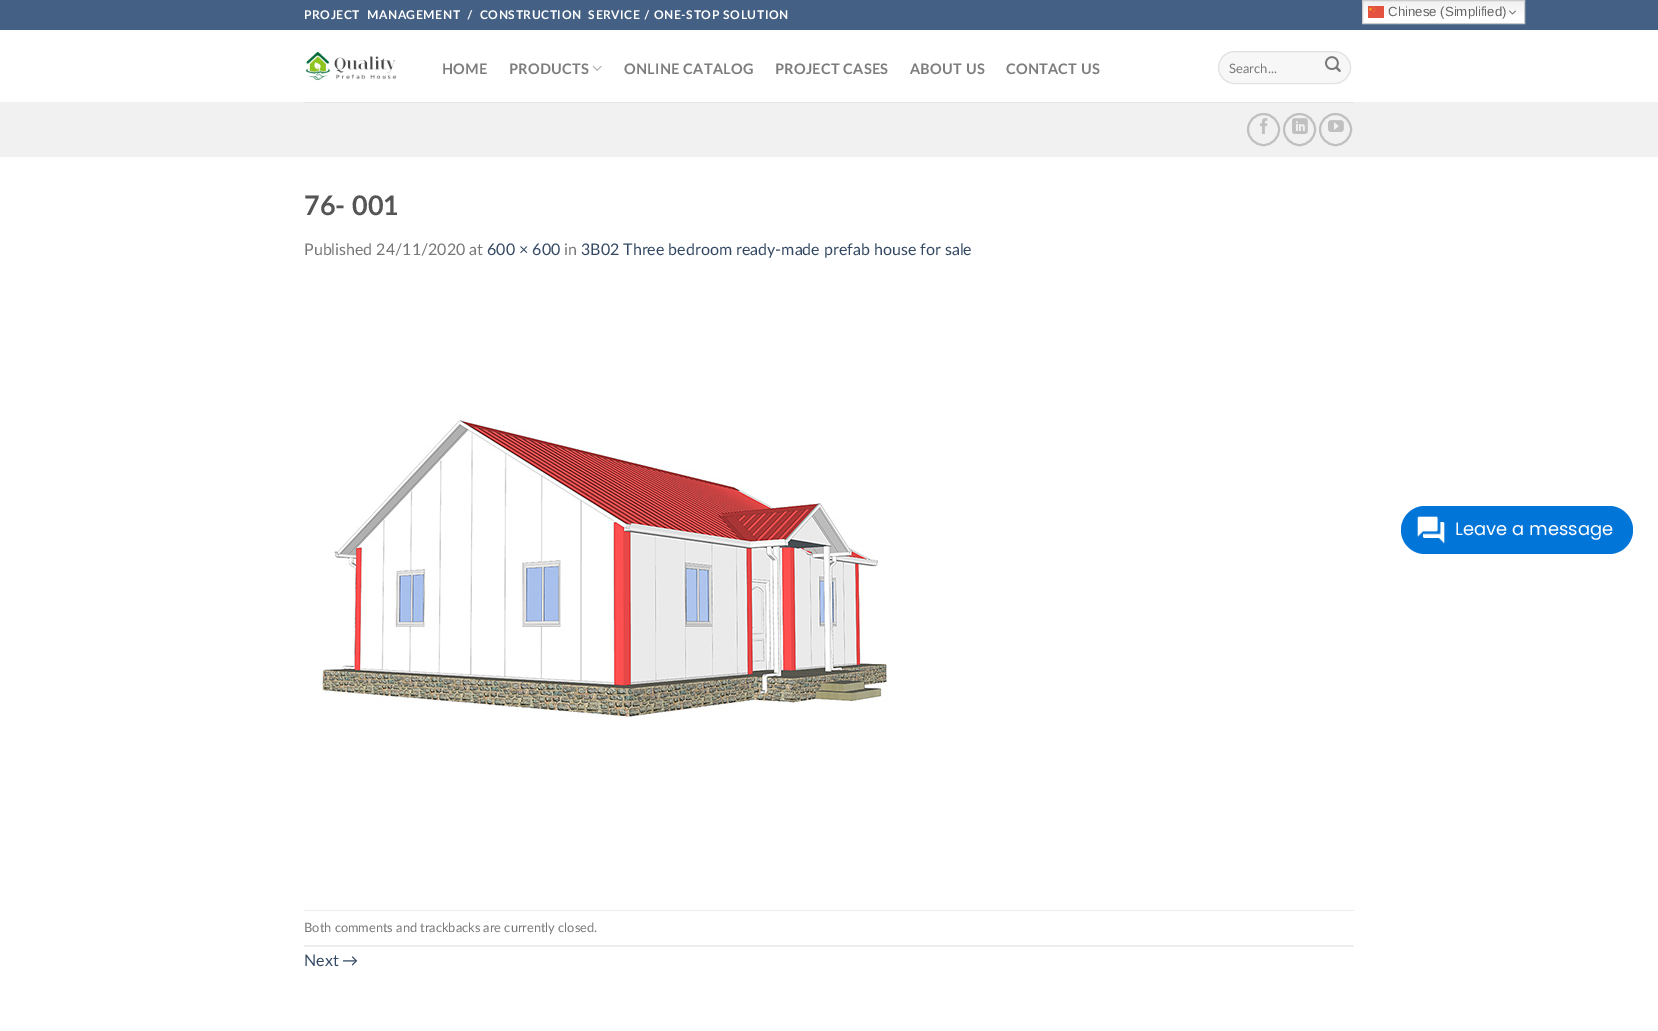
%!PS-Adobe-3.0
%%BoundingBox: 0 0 1658 1031
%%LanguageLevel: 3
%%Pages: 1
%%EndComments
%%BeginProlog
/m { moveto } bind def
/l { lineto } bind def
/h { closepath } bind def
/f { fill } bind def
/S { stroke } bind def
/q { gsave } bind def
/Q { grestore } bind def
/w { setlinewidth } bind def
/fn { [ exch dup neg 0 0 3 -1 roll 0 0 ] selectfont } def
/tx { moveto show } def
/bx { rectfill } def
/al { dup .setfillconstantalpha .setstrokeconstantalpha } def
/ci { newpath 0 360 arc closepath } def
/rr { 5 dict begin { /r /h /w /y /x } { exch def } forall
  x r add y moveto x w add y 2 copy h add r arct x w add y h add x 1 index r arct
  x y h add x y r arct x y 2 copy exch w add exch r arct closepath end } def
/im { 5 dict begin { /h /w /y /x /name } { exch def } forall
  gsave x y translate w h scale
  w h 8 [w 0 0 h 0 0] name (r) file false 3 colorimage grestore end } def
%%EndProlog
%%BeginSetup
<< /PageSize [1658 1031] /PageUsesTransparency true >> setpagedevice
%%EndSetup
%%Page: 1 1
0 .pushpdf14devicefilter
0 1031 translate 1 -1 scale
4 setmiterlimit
1 setgray
0 0 1658 1031 bx
0.267 0.376 0.518 setrgbcolor
0 0 1658 30 bx
/Lato-Bold 12 fn
1 setgray
304 19 m 0.6 0 (PROJECT MANAGEMENT / CONSTRUCTION SERVICE / ONE-STOP SOLUTION) ashow
(image0.raw) 305 51 92 30 im
/Lato-Bold 14.5 fn
0.49 setgray
442 74 m 0.25 0 (HOME) ashow
509 74 m 0.25 0 (PRODUCTS) ashow
(image1.raw) 592 65 10 6 im
624 74 m 0.25 0 (ONLINE CATALOG) ashow
775 74 m 0.25 0 (PROJECT CASES) ashow
910 74 m 0.25 0 (ABOUT US) ashow
1006 74 m 0.25 0 (CONTACT US) ashow
0.969 setgray
1218 51 133 33 16.5 rr f
0.09 al
0 setgray
1218.5 51.5 132 32 16 rr S
/Lato-Regular 13 fn
1 al
0.467 setgray
(Search...) 1229 73 tx
(image2.raw) 1325 56 16 16 im
0.945 setgray
0 102 1658 55 bx
0.898 setgray
304 102 1050 1 bx
0.753 setgray
2 w
1263.5 129.5 15.5 ci S
(image3.raw) 1260 118 8 16 im
1299.5 129.5 15.5 ci S
(image4.raw) 1292 118 16 16 im
1335.5 129.5 15.5 ci S
(image5.raw) 1328 120 16 12 im
/Lato-Bold 27 fn
0.333 setgray
(76- 001) 304 215 tx
/Lato-Regular 16 fn
0.467 setgray
(Published 24/11/2020 at) 304 255 tx
0.2 0.282 0.384 setrgbcolor
(600 × 600) 487 255 tx
0.467 setgray
(in) 564 255 tx
0.2 0.282 0.384 setrgbcolor
(3B02 Three bedroom ready-made prefab house for sale) 581 255 tx
(image6.raw) 320 414 568 304 im
0.925 setgray
304 910 1050 1 bx
304 945 1050 2 bx
/Lato-Regular 12.8 fn
0.467 setgray
(Both comments and trackbacks are currently closed.) 304 932 tx
/Lato-Regular 16 fn
0.2 0.282 0.384 setrgbcolor
(Next →) 304 966 tx
q 1363 1 m 1524 1 l 1524 23 l 1363 23 l h clip newpath
<< /ShadingType 2 /ColorSpace /DeviceRGB /Coords [1444 0 1444 24] /Extend [true true] /Function << /FunctionType 3 /Domain [0 1] /Functions [<< /FunctionType 2 /Domain [0 1] /C0 [0.937 0.937 0.937] /C1 [1 1 1] /N 1 >> << /FunctionType 2 /Domain [0 1] /C0 [1 1 1] /C1 [1 1 1] /N 1 >>] /Bounds [0.7] /Encode [0 1 0 1] >> >> shfill Q
0.8 setgray
1 w
1362.5 0.5 162 23 rectstroke
(image7.raw) 1368 6 16 12 im
/LiberationSans-Regular 13.25 fn
0.4 setgray
(Chinese \(Simplified\)) 1388 16 tx
(image8.raw) 1509 10 7 5 im
0.008 0.459 0.847 setrgbcolor
1401 506 232 48 24 rr f
(image9.raw) 1417 516 28 28 im
/Poppins-Regular 18 fn
1 setgray
(Leave a message) 1455 535 tx
.poppdf14devicefilter showpage
%%EOF
